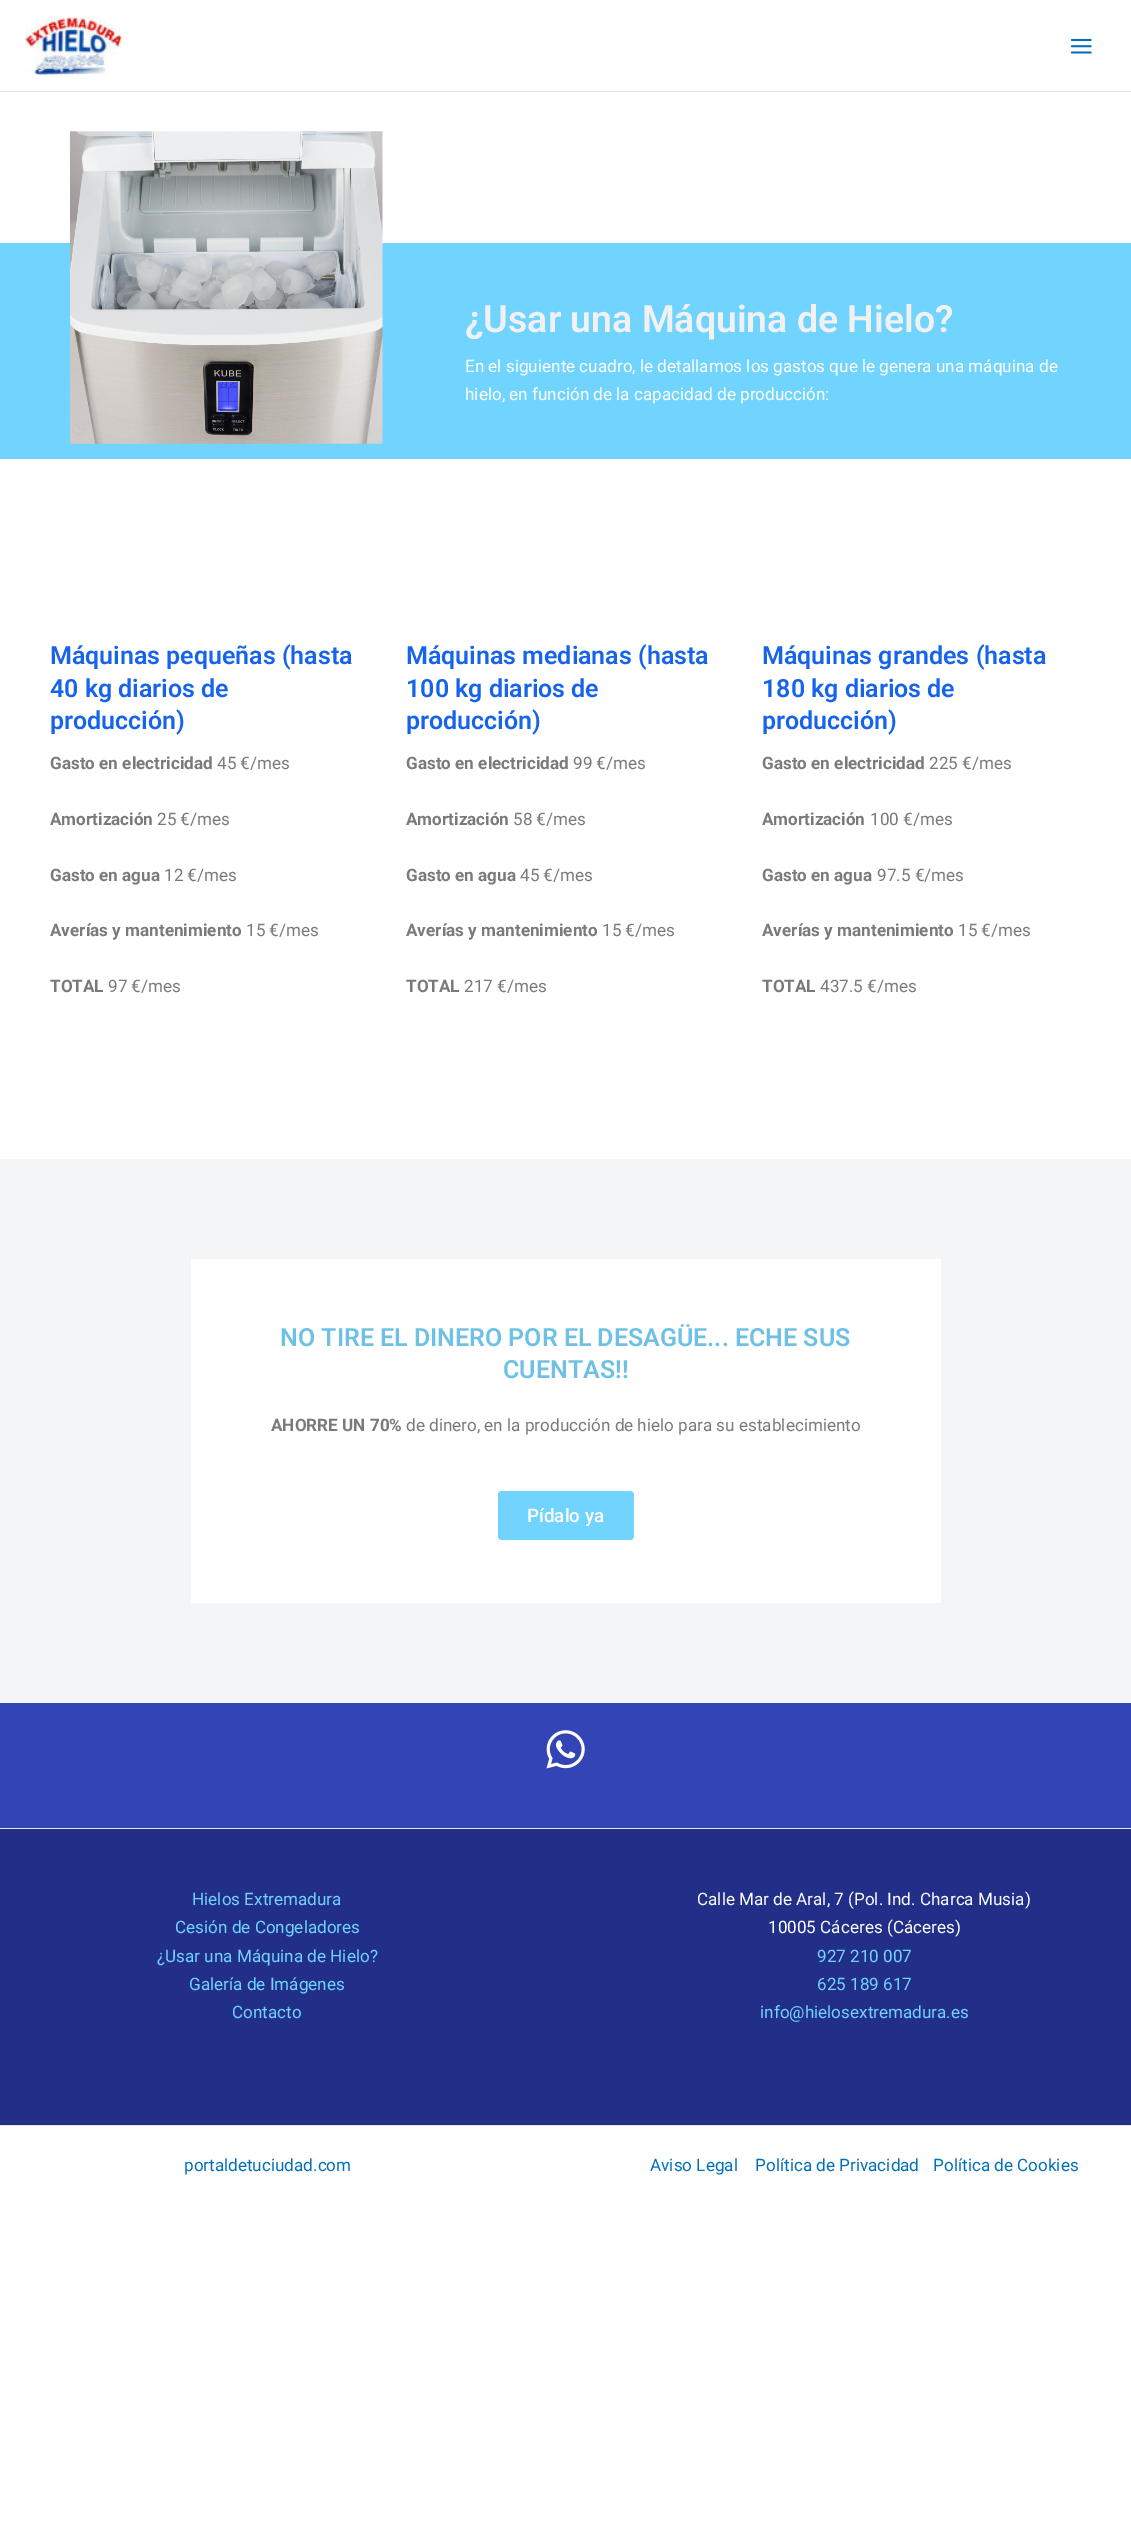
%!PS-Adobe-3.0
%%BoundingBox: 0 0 1131 2538
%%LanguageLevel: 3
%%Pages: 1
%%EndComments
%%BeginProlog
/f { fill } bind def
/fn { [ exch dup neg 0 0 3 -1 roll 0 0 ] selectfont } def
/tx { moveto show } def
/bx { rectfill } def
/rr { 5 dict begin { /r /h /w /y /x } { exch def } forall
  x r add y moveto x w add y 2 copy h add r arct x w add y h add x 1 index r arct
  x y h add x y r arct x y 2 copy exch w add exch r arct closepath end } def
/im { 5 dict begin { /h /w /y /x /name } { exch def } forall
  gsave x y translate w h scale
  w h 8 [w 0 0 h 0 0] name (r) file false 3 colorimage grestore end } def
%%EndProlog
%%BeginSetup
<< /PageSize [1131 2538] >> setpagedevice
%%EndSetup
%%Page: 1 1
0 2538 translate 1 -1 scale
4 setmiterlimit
1 setgray
0 0 1131 2538 bx
0.898 setgray
0 91 1131 1 bx
(image0.raw) 25 17 97 58 im
(image1.raw) 1070 38 22 16 im
0.443 0.831 1 setrgbcolor
0 243 1131 216 bx
(image2.raw) 70 131 313 313 im
/Roboto-SemiBold 37.5 fn
0.945 setgray
(¿Usar una Máquina de Hielo?) 465 332 tx
/Roboto-Regular 17.1 fn
1 setgray
(En el siguiente cuadro, le detallamos los gastos que le genera una máquina de) 465 372 tx
(hielo, en función de la capacidad de producción:) 465 400 tx
/Roboto-SemiBold 25 fn
0.09 0.392 0.925 setrgbcolor
(Máquinas pequeñas \(hasta) 50 664 tx
(40 kg diarios de) 50 697 tx
(producción\)) 50 729 tx
/Roboto-Bold 17.1 fn
0.478 setgray
(Gasto en electricidad) 50 769 tx
/Roboto-Regular 17.1 fn
(45 €/mes) 217 769 tx
/Roboto-Bold 17.1 fn
(Amortización) 50 825 tx
/Roboto-Regular 17.1 fn
(25 €/mes) 157 825 tx
/Roboto-Bold 17.1 fn
(Gasto en agua) 50 881 tx
/Roboto-Regular 17.1 fn
(12 €/mes) 164 881 tx
/Roboto-Bold 17.1 fn
(Averías y mantenimiento) 50 936 tx
/Roboto-Regular 17.1 fn
(15 €/mes) 246 936 tx
/Roboto-Bold 17.1 fn
(TOTAL) 50 992 tx
/Roboto-Regular 17.1 fn
(97 €/mes) 108 992 tx
/Roboto-SemiBold 25 fn
0.09 0.392 0.925 setrgbcolor
(Máquinas medianas \(hasta) 406 664 tx
(100 kg diarios de) 406 697 tx
(producción\)) 406 729 tx
/Roboto-Bold 17.1 fn
0.478 setgray
(Gasto en electricidad) 406 769 tx
/Roboto-Regular 17.1 fn
(99 €/mes) 573 769 tx
/Roboto-Bold 17.1 fn
(Amortización) 406 825 tx
/Roboto-Regular 17.1 fn
(58 €/mes) 513 825 tx
/Roboto-Bold 17.1 fn
(Gasto en agua) 406 881 tx
/Roboto-Regular 17.1 fn
(45 €/mes) 520 881 tx
/Roboto-Bold 17.1 fn
(Averías y mantenimiento) 406 936 tx
/Roboto-Regular 17.1 fn
(15 €/mes) 602 936 tx
/Roboto-Bold 17.1 fn
(TOTAL) 406 992 tx
/Roboto-Regular 17.1 fn
(217 €/mes) 464 992 tx
/Roboto-SemiBold 25 fn
0.09 0.392 0.925 setrgbcolor
(Máquinas grandes \(hasta) 762 664 tx
(180 kg diarios de) 762 697 tx
(producción\)) 762 729 tx
/Roboto-Bold 17.1 fn
0.478 setgray
(Gasto en electricidad) 762 769 tx
/Roboto-Regular 17.1 fn
(225 €/mes) 929 769 tx
/Roboto-Bold 17.1 fn
(Amortización) 762 825 tx
/Roboto-Regular 17.1 fn
(100 €/mes) 870 825 tx
/Roboto-Bold 17.1 fn
(Gasto en agua) 762 881 tx
/Roboto-Regular 17.1 fn
(97.5 €/mes) 877 881 tx
/Roboto-Bold 17.1 fn
(Averías y mantenimiento) 762 936 tx
/Roboto-Regular 17.1 fn
(15 €/mes) 958 936 tx
/Roboto-Bold 17.1 fn
(TOTAL) 762 992 tx
/Roboto-Regular 17.1 fn
(437.5 €/mes) 820 992 tx
0.957 0.961 0.965 setrgbcolor
0 1159 1131 544 bx
1 setgray
191 1259 750 344 bx
/Roboto-SemiBold 25 fn
0.431 0.757 0.894 setrgbcolor
(NO TIRE EL DINERO POR EL DESAGÜE... ECHE SUS) 280 1346 tx
(CUENTAS!!) 503 1378 tx
/Roboto-Bold 17.1 fn
0.478 setgray
(AHORRE UN 70%) 271 1431 tx
/Roboto-Regular 17.1 fn
(de dinero, en la producción de hielo para su establecimiento) 406 1431 tx
0.443 0.831 1 setrgbcolor
498 1491 136 49 4 rr f
/Roboto-Medium 18.75 fn
1 setgray
(Pídalo ya) 527 1522 tx
0.196 0.267 0.714 setrgbcolor
0 1703 1131 125 bx
(image3.raw) 546 1730 39 39 im
0.133 0.184 0.537 setrgbcolor
0 1829 1131 296 bx
0.898 setgray
0 1828 1131 1 bx
/Roboto-Regular 17.1 fn
0.443 0.831 1 setrgbcolor
(Hielos Extremadura) 192 1905 tx
(Cesión de Congeladores) 175 1933 tx
(¿Usar una Máquina de Hielo?) 157 1962 tx
(Galería de Imágenes) 189 1990 tx
(Contacto) 232 2018 tx
1 setgray
(Calle Mar de Aral, 7 \(Pol. Ind. Charca Musia\)) 697 1905 tx
(10005 Cáceres \(Cáceres\)) 768 1933 tx
0.443 0.831 1 setrgbcolor
(927 210 007) 817 1962 tx
(625 189 617) 817 1990 tx
(info@hielosextremadura.es) 760 2018 tx
0.898 setgray
0 2125 1131 1 bx
0.004 0.439 0.725 setrgbcolor
(portaldetuciudad.com) 184 2171 tx
(Aviso Legal) 650 2171 tx
(Política de Privacidad) 755 2171 tx
(Política de Cookies) 933 2171 tx
showpage
%%EOF
